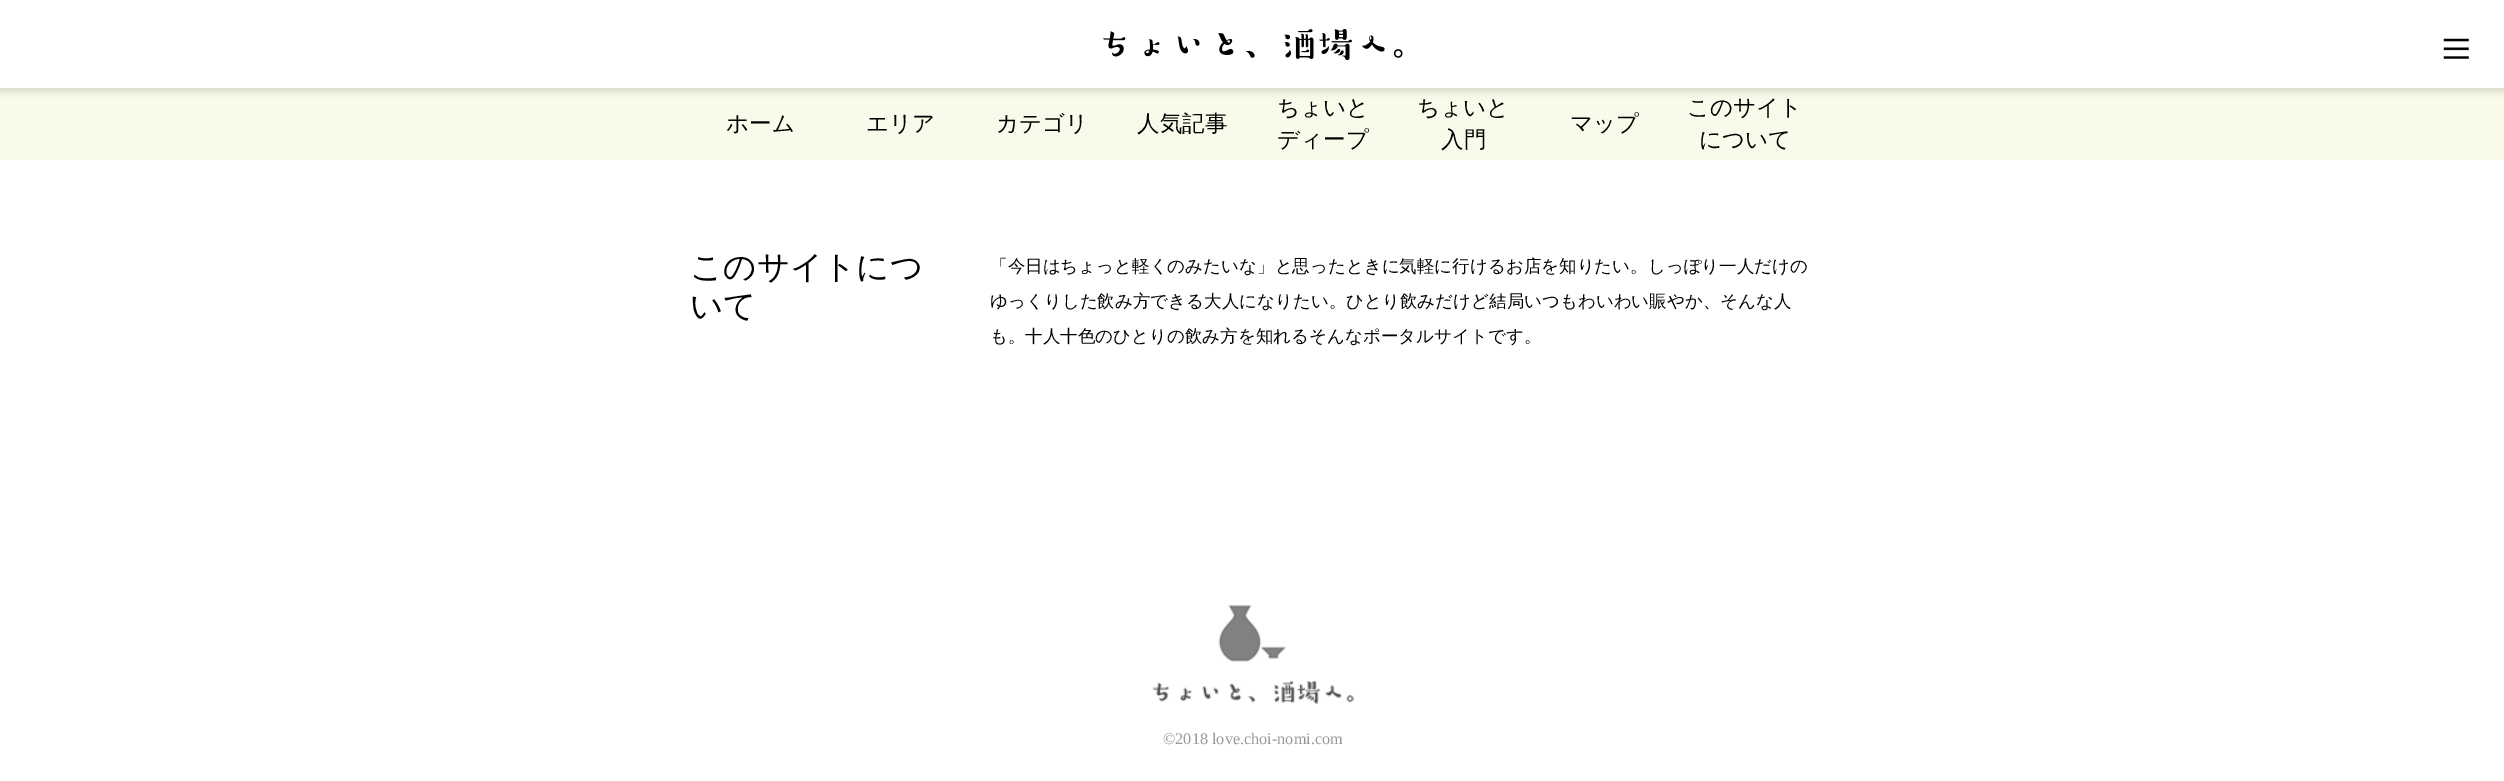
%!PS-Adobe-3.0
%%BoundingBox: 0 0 2504 781
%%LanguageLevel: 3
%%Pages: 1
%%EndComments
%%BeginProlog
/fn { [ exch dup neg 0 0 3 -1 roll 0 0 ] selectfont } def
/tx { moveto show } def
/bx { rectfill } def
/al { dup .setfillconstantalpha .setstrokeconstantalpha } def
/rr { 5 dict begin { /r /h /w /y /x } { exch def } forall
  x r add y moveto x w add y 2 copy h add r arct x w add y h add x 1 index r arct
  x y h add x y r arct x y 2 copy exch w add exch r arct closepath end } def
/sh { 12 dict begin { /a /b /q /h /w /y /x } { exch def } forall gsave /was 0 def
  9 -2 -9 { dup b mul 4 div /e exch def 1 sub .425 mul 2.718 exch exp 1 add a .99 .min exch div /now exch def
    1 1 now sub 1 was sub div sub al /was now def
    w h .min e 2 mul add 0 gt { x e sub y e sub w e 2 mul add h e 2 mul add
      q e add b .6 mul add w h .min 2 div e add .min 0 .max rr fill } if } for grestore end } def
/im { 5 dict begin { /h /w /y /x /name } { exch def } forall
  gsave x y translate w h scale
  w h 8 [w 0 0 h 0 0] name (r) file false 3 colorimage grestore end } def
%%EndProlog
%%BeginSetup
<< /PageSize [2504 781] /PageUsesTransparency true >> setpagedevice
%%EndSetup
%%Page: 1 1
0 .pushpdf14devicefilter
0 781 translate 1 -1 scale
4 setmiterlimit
1 setgray
0 0 2504 781 bx
0.98 0.98 0.918 setrgbcolor
0 88 2504 72 bx
0 setgray
0 4 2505 87 0 4 0.16 sh
1 setgray
0 0 2504 88 bx
(image0.raw) 1103 29 300 31 im
(image1.raw) 2443 38 26 21 im
/WenQuanYiZenHei-Medium 22.5 fn
0 setgray
(ホーム) 726 131 tx
(エリア) 866 131 tx
(カテゴリ) 996 131 tx
(人気記事) 1137 131 tx
(ちょいと) 1277 115 tx
(ディープ) 1277 147 tx
(ちょいと) 1417 115 tx
(入門) 1441 147 tx
(マップ) 1570 131 tx
(このサイト) 1687 115 tx
(について) 1699 147 tx
/WenQuanYiZenHei-Medium 32.5 fn
(このサイトにつ) 690 278 tx
(いて) 690 317 tx
/WenQuanYiZenHei-Medium 17.5 fn
(「今日はちょっと軽くのみたいな」と思ったときに気軽に行けるお店を知りたい。しっぽり一人だけの) 990 272 tx
(ゆっくりした飲み方できる大人になりたい。ひとり飲みだけど結局いつもわいわい賑やか、そんな人) 990 307 tx
(も。十人十色のひとりの飲み方を知れるそんなポータルサイトです。) 990 342 tx
(image2.raw) 1152 604 202 100 im
/LiberationSerif-Regular 16.25 fn
0.6 setgray
(©2018 love.choi-nomi.com) 1163 744 tx
.poppdf14devicefilter showpage
%%EOF
